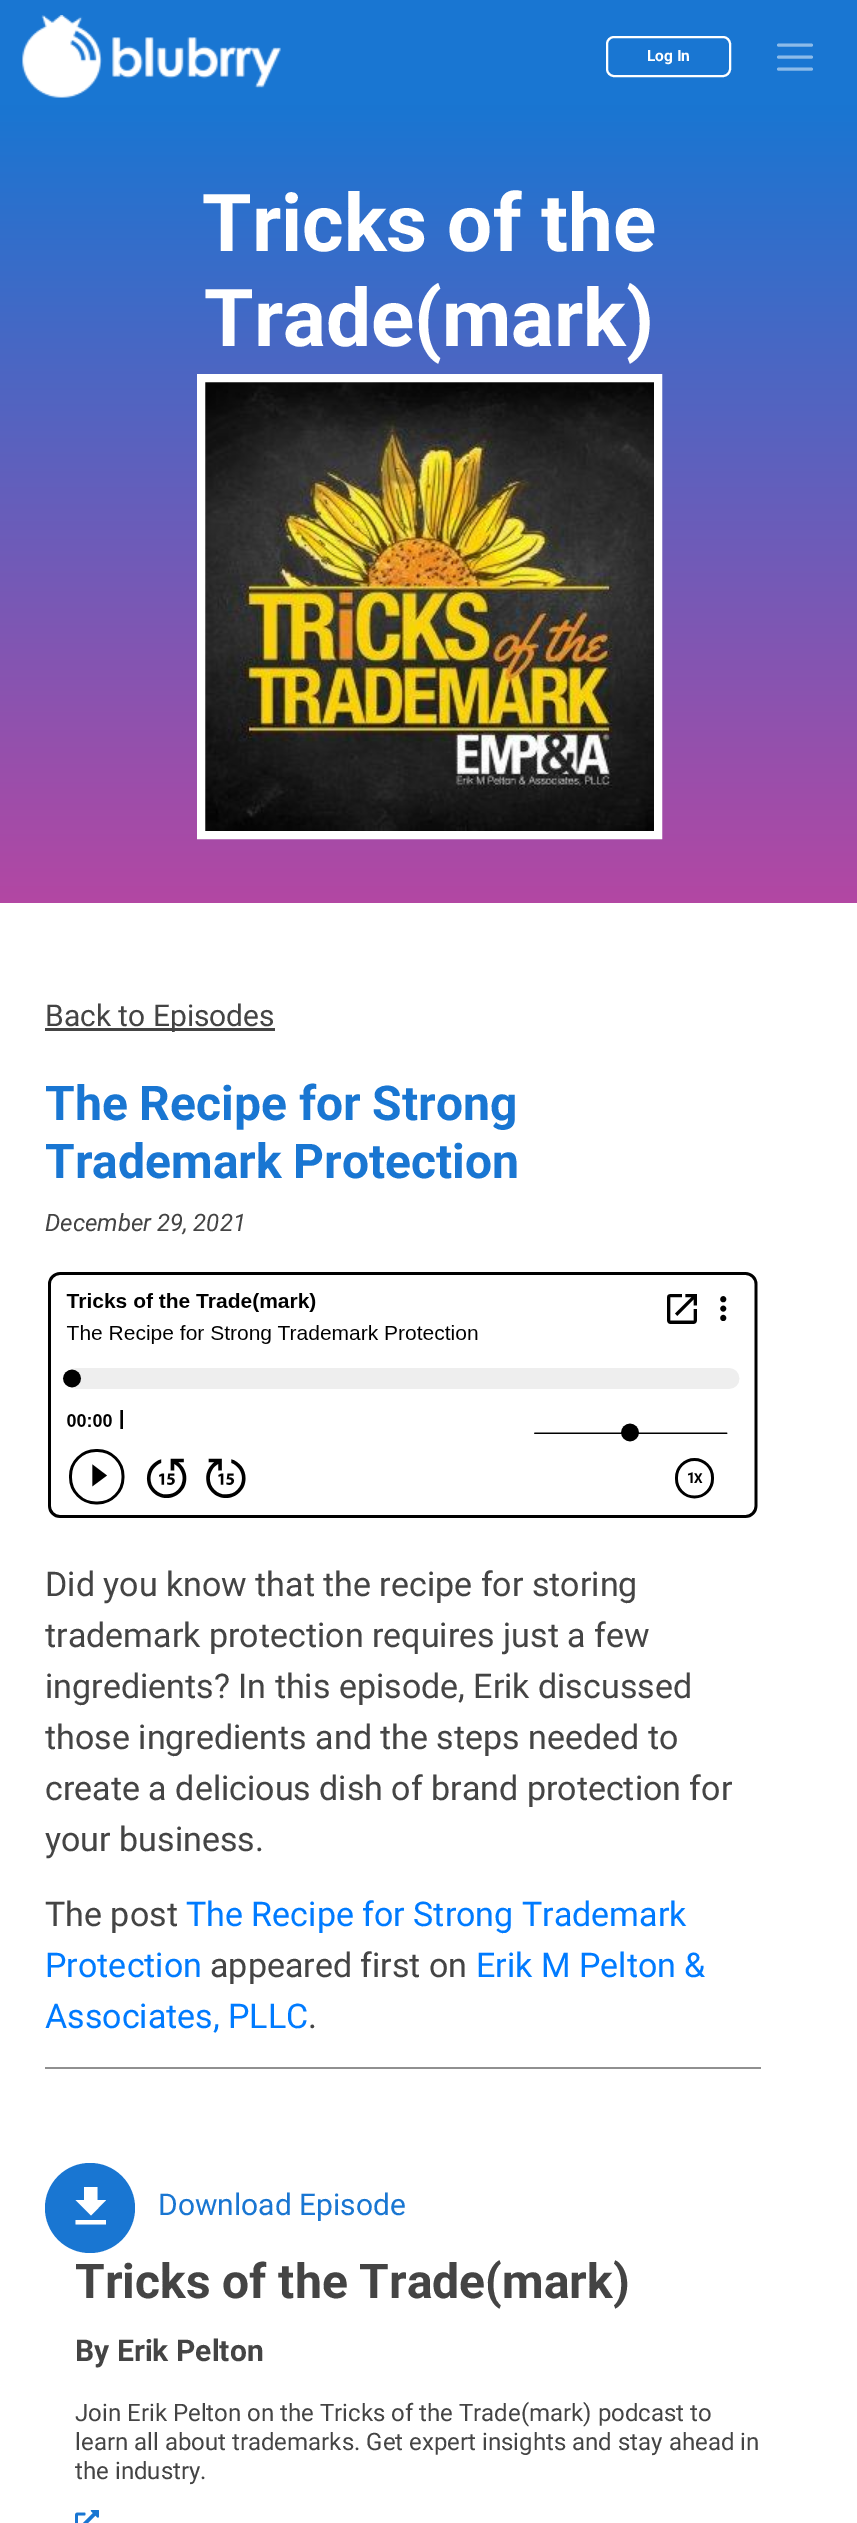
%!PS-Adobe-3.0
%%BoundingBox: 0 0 857 2523
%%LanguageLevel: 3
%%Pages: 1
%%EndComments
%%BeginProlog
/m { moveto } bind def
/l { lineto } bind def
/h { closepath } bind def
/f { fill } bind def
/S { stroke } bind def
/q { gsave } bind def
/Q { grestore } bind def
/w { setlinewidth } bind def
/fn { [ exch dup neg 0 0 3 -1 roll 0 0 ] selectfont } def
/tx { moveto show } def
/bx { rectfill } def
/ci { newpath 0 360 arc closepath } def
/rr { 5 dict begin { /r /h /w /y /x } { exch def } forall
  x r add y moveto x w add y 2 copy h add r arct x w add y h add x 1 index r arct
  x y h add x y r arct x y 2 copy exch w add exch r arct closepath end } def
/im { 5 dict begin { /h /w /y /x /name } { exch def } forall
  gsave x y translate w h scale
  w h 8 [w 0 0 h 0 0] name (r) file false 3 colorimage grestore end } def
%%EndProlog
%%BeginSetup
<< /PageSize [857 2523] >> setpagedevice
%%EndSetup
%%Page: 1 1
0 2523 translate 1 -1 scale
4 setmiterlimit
1 setgray
0 0 857 2523 bx
0.098 0.463 0.824 setrgbcolor
0 0 857 105 bx
(image0.raw) 22 15 259 83 im
1 setgray
2 w
607 37 123 39 7 rr S
/Roboto-Bold 15.5 fn
(Log In) 647 61 tx
0.549 0.733 0.914 setrgbcolor
3 w
1 setlinecap
778.5 45 m 811.5 45 l 778.5 57 m 811.5 57 l 778.5 69 m 811.5 69 l S
q 0 105 m 857 105 l 857 903 l 0 903 l h clip newpath
<< /ShadingType 2 /ColorSpace /DeviceRGB /Coords [429 105 429 903] /Extend [true true] /Function << /FunctionType 2 /Domain [0 1] /C0 [0.098 0.463 0.824] /C1 [0.702 0.278 0.639] /N 1 >> >> shfill Q
/Roboto-Bold 80 fn
1 setgray
(Tricks of the) 202 251 tx
(Trade\(mark\)) 204 346 tx
(image1.raw) 205 382 449 449 im
8 w
0 setlinecap
201 378 457 457 rectstroke
0.267 setgray
45 1028 230 3 bx
/Roboto-Regular 30 fn
(Back to Episodes) 45 1026 tx
/Roboto-Bold 48 fn
0.098 0.463 0.824 setrgbcolor
(The Recipe for Strong) 45 1120 tx
(Trademark Protection) 45 1178 tx
/Roboto-Italic 24 fn
0.267 setgray
(December 29, 2021) 45 1231 tx
(image2.raw) 48 1272 710 246 im
0.565 setgray
45 2067 716 2 bx
/Roboto-Regular 34 fn
0.267 setgray
(Did you know that the recipe for storing) 45 1596 tx
(trademark protection requires just a few) 45 1647 tx
(ingredients? In this episode, Erik discussed) 45 1698 tx
(those ingredients and the steps needed to) 45 1749 tx
(create a delicious dish of brand protection for) 45 1800 tx
(your business.) 45 1851 tx
(The post) 45 1926 tx
0 0.482 1 setrgbcolor
(The Recipe for Strong Trademark) 186 1926 tx
(Protection) 45 1977 tx
0.267 setgray
(appeared first on) 210 1977 tx
0 0.482 1 setrgbcolor
(Erik M Pelton &) 476 1977 tx
(Associates, PLLC) 45 2028 tx
0.267 setgray
(.) 308 2028 tx
0.098 0.463 0.824 setrgbcolor
90 2208 45 ci f
1 setgray
106 2200 m 97.5 2200 l 97.5 2187 l 84 2187 l 84 2200 l 75.5 2200 l 91 2215.5 l h 75.5 2220 m 75.5 2224.5 l 106 2224.5 l 106 2220 l h f
/Roboto-Regular 30 fn
0.098 0.463 0.824 setrgbcolor
(Download Episode) 158 2215 tx
/Roboto-Bold 48 fn
0.267 setgray
(Tricks of the Trade\(mark\)) 75 2298 tx
/Roboto-Bold 30 fn
(By Erik Pelton) 75 2361 tx
/Roboto-Regular 24 fn
(Join Erik Pelton on the Tricks of the Trade\(mark\) podcast to) 75 2421 tx
(learn all about trademarks. Get expert insights and stay ahead in) 75 2450 tx
(the industry.) 75 2479 tx
(image3.raw) 75 2510 24 13 im
showpage
%%EOF
